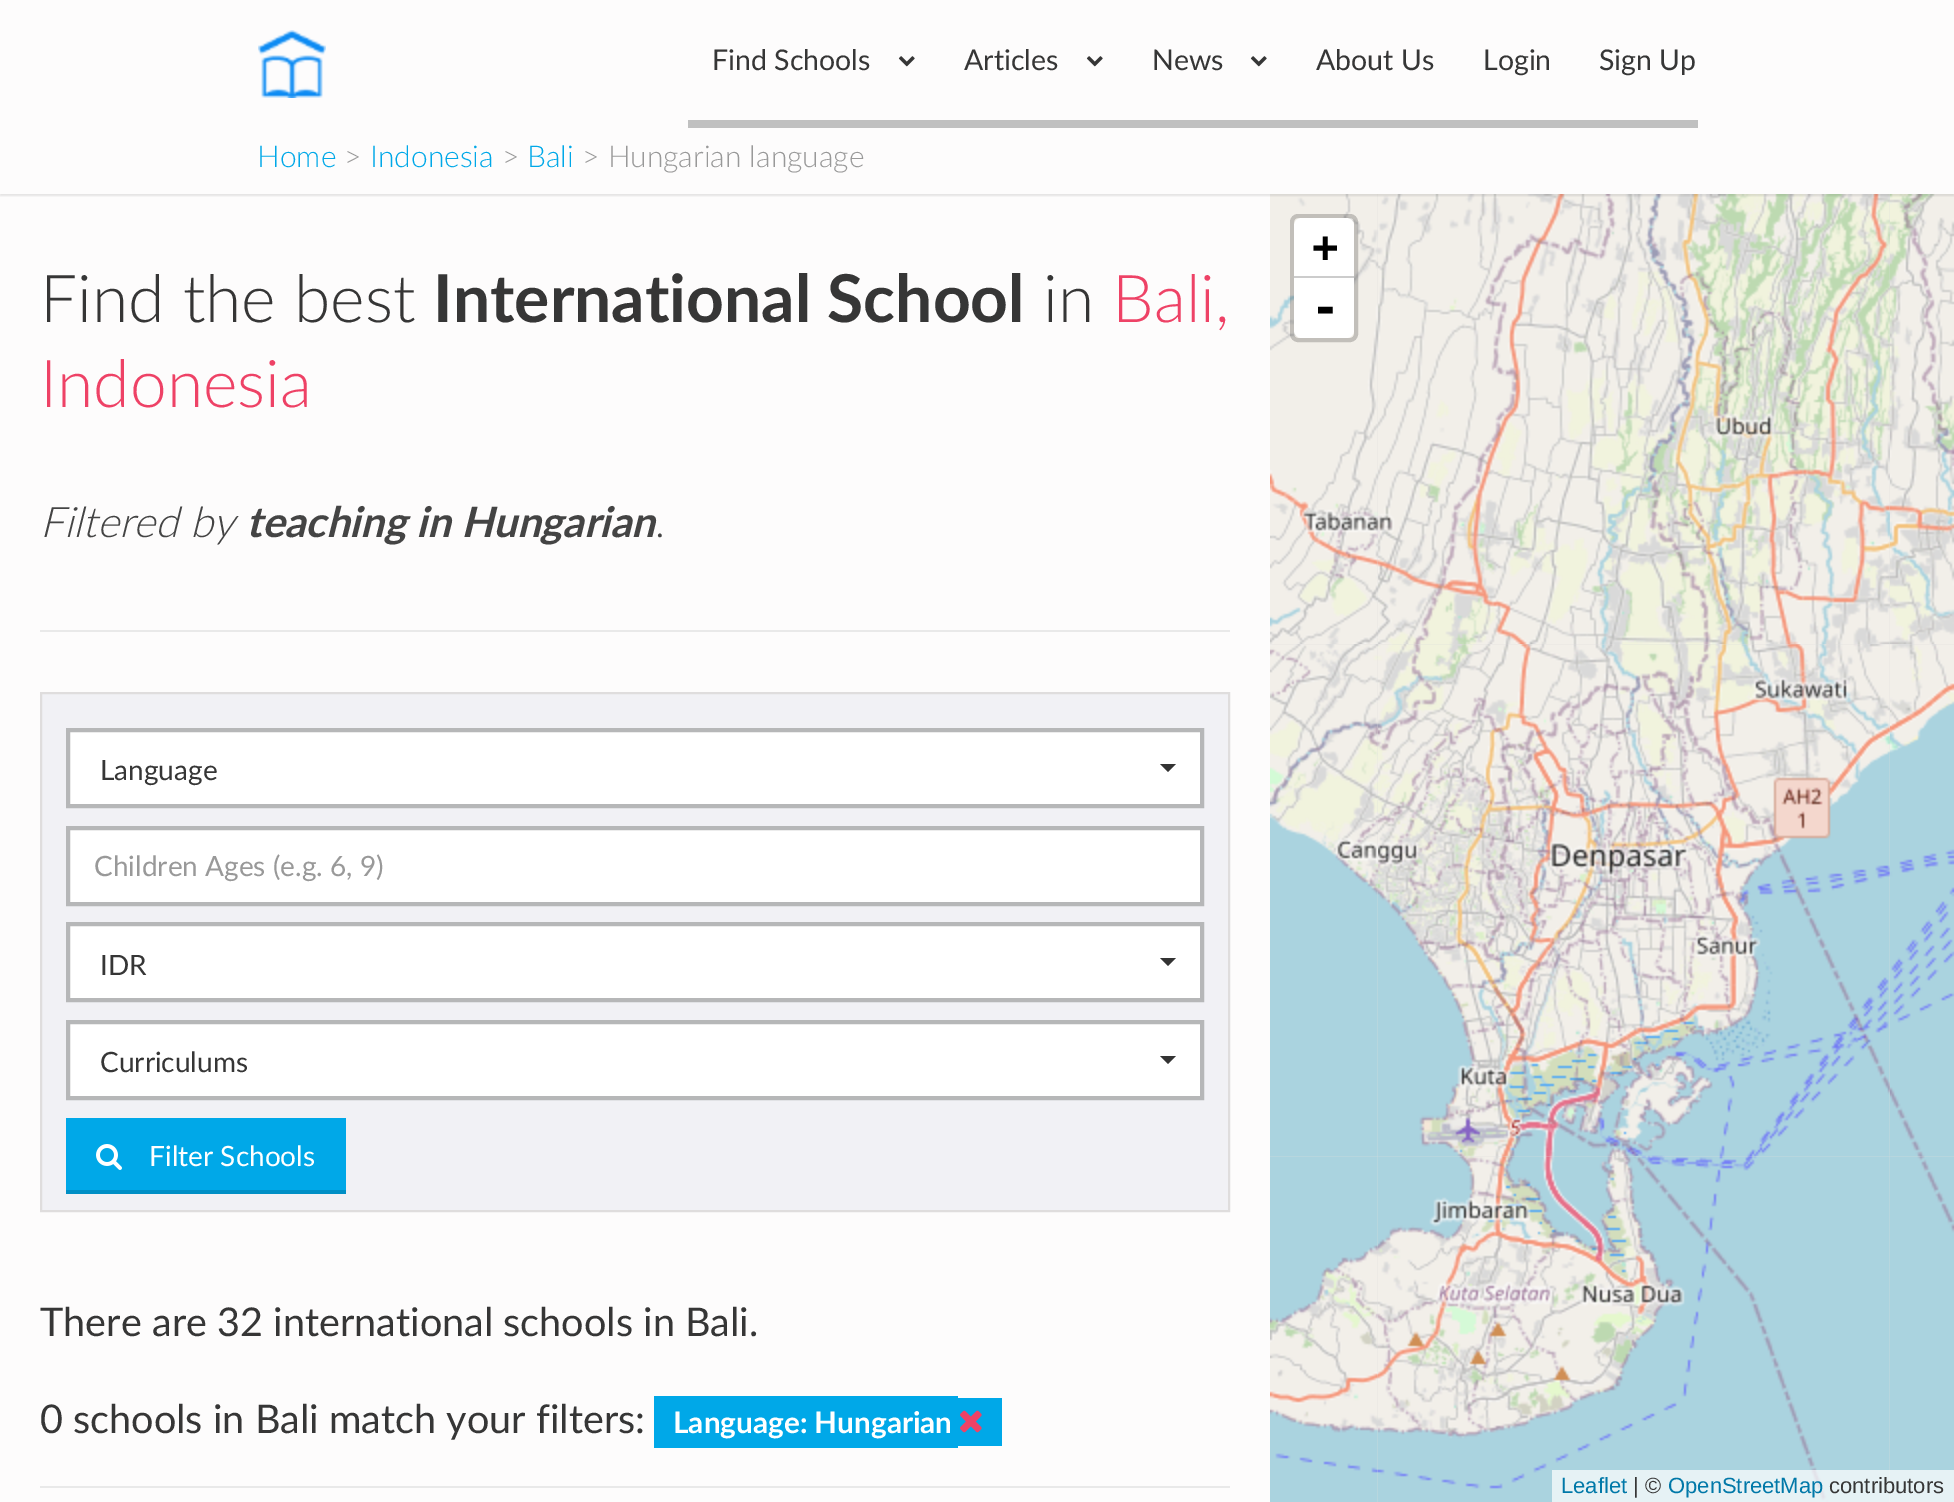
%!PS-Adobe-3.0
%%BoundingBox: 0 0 1954 1502
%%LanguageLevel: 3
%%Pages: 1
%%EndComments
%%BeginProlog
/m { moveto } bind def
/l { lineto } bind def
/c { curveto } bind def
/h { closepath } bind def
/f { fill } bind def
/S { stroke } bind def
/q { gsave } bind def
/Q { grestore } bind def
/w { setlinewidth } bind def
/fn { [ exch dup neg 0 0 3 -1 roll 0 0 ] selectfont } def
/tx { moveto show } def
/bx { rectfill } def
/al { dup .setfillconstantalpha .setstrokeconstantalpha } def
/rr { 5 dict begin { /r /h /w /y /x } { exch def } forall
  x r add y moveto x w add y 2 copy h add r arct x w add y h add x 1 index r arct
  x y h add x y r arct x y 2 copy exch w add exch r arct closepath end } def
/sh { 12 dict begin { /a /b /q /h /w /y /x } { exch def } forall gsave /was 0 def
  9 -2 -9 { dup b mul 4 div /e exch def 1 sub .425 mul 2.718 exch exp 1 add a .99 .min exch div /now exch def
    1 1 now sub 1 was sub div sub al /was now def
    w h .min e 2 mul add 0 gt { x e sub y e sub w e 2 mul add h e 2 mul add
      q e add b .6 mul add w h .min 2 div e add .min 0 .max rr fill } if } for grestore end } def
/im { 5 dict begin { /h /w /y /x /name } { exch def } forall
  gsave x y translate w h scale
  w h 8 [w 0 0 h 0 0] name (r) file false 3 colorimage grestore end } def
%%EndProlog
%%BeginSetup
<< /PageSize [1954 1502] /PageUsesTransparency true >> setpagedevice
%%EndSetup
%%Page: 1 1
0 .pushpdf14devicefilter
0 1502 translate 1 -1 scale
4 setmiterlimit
0.992 0.988 0.988 setrgbcolor
0 0 1954 1502 bx
0.867 setgray
1270 194 684 1308 bx
(image8.raw) 1378 643 513 513 im
(image5.raw) 1378 194 512 450 im
(image7.raw) 1270 643 109 513 im
(image4.raw) 1270 194 109 450 im
(image6.raw) 1890 194 64 450 im
q
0 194 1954 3 rectclip
0 setgray
0 2 1954 194 0 1 0.1 sh
Q
(image0.raw) 258 30 68 68 im
0.753 setgray
688 120 1010 8 bx
/Lato-Regular 28.5 fn
0.212 setgray
(Find Schools) 712 70 tx
(image1.raw) 898 56 17 11 im
(Articles) 964 70 tx
(image1.raw) 1086 56 17 11 im
(News) 1152 70 tx
(image1.raw) 1250 56 17 11 im
(About Us) 1316 70 tx
(Login) 1483 70 tx
(Sign Up) 1599 70 tx
/Lato-Light 30 fn
0 0.659 0.91 setrgbcolor
(Home) 257 167 tx
0.6 setgray
(>) 344 167 tx
0 0.659 0.91 setrgbcolor
(Indonesia) 370 167 tx
0.6 setgray
(>) 502 167 tx
0 0.659 0.91 setrgbcolor
(Bali) 527 167 tx
0.6 setgray
(> Hungarian language) 582 167 tx
0.914 setgray
40 630 1190 2 bx
/Lato-Light 66 fn
0.212 setgray
(Find the best) 40 322 tx
/Lato-Bold 66 fn
(International School) 433 322 tx
/Lato-Light 66 fn
(in) 1043 322 tx
0.933 0.259 0.4 setrgbcolor
(Bali,) 1112 322 tx
(Indonesia) 40 407 tx
/Lato-LightItalic 42 fn
0.267 setgray
(Filtered by) 40 537 tx
/Lato-BoldItalic 42 fn
(teaching in Hungarian) 246 537 tx
/Lato-Light 42 fn
(.) 655 537 tx
0.945 0.945 0.961 setrgbcolor
41 693 m 1229 693 l 1229 1211 l 41 1211 l h q f Q
0.875 0.867 0.867 setrgbcolor
2 w
S
1 setgray
68 730 m 1202 730 l 1202 806 l 68 806 l h q f Q
0.714 0.718 0.722 setrgbcolor
4 w
S
/Lato-Regular 28 fn
0.212 setgray
(Language) 100 780 tx
0.2 setgray
1160 764 m 1176 764 l 1168 772 l h f
1 setgray
68 828 m 1202 828 l 1202 904 l 68 904 l h q f Q
0.714 0.718 0.722 setrgbcolor
S
0.6 setgray
(Children Ages \(e.g. 6, 9\)) 94 876 tx
1 setgray
68 924 m 1202 924 l 1202 1000 l 68 1000 l h q f Q
0.714 0.718 0.722 setrgbcolor
S
0.212 setgray
(IDR) 100 975 tx
0.2 setgray
1160 958 m 1176 958 l 1168 966 l h f
1 setgray
68 1022 m 1202 1022 l 1202 1098 l 68 1098 l h q f Q
0.714 0.718 0.722 setrgbcolor
S
0.212 setgray
(Curriculums) 100 1072 tx
0.2 setgray
1160 1056 m 1176 1056 l 1168 1064 l h f
0 0.659 0.91 setrgbcolor
66 1118 280 72 bx
(image2.raw) 96 1144 26 26 im
1 setgray
(Filter Schools) 149 1166 tx
0 0.561 0.773 setrgbcolor
66 1190 280 4 bx
0.914 setgray
40 1486 1190 2 bx
/Lato-Regular 39.6 fn
0.212 setgray
(There are 32 international schools in Bali.) 40 1336 tx
(0 schools in Bali match your filters:) 40 1433 tx
0 0.659 0.91 setrgbcolor
654 1396 304 52 bx
958 1398 44 48 bx
/Lato-Bold 29.75 fn
1 setgray
(Language: Hungarian) 673 1433 tx
(image3.raw) 960 1410 22 23 im
(image9.raw) 1890 644 64 512 im
(image11.raw) 1378 1155 513 347 im
(image10.raw) 1270 1156 109 346 im
(image12.raw) 1890 1155 64 347 im
0.2 al
0 setgray
1292 216 64 124 6 rr S
1 al
1 setgray
1302 218 m 1346 218 l 1350.5 218 1354 221.5 1354 226 c 1354 278 l 1294 278 l 1294 226 l 1294 221.5 1297.5 218 1302 218 c h f
0.8 setgray
1294 276 60 2 bx
/DejaVuSansMono-Bold 44 fn
0 setgray
(+) 1312 262 tx
1 setgray
1294 278 m 1354 278 l 1354 330 l 1354 334.5 1350.5 338 1346 338 c 1302 338 l 1297.5 338 1294 334.5 1294 330 c h f
/DejaVuSansMono-Bold 48 fn
0 setgray
(-) 1311 324 tx
0.7 al
1 setgray
1552 1470 402 32 bx
/LiberationSans-Regular 22 fn
1 al
0 0.471 0.659 setrgbcolor
(Leaflet) 1561 1493 tx
0.212 setgray
(| ©) 1633 1493 tx
0 0.471 0.659 setrgbcolor
(OpenStreetMap) 1668 1493 tx
0.212 setgray
(contributors) 1829 1493 tx
.poppdf14devicefilter showpage
%%EOF
